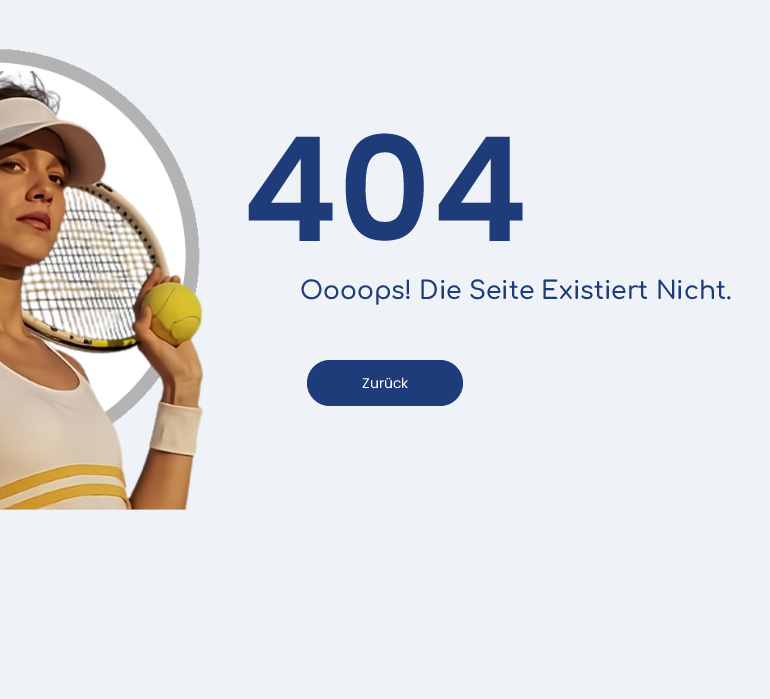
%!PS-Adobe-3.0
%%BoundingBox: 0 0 770 699
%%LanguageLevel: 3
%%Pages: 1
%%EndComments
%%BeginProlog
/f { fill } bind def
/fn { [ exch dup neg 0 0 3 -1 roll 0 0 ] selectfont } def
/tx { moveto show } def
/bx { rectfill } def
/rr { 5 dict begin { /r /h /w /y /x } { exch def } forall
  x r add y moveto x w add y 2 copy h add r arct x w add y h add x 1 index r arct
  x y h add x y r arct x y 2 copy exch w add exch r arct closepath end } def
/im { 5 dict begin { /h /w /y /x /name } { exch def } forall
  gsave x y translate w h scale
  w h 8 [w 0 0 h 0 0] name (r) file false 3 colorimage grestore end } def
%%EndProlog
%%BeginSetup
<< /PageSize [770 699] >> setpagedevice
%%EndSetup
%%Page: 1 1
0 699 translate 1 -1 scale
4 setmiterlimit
0.937 0.953 0.973 setrgbcolor
0 0 770 699 bx
(image0.raw) 0 48 204 462 im
/Poppins-SemiBold 145 fn
0.118 0.235 0.475 setrgbcolor
(404) 242 241 tx
/Comfortaa-SemiBold 25 fn
(Oooops! Die Seite Existiert Nicht.) 300 299 tx
307 360 156 46 23 rr f
/Poppins-Regular 14 fn
1 setgray
(Zurück) 362 388 tx
showpage
%%EOF
